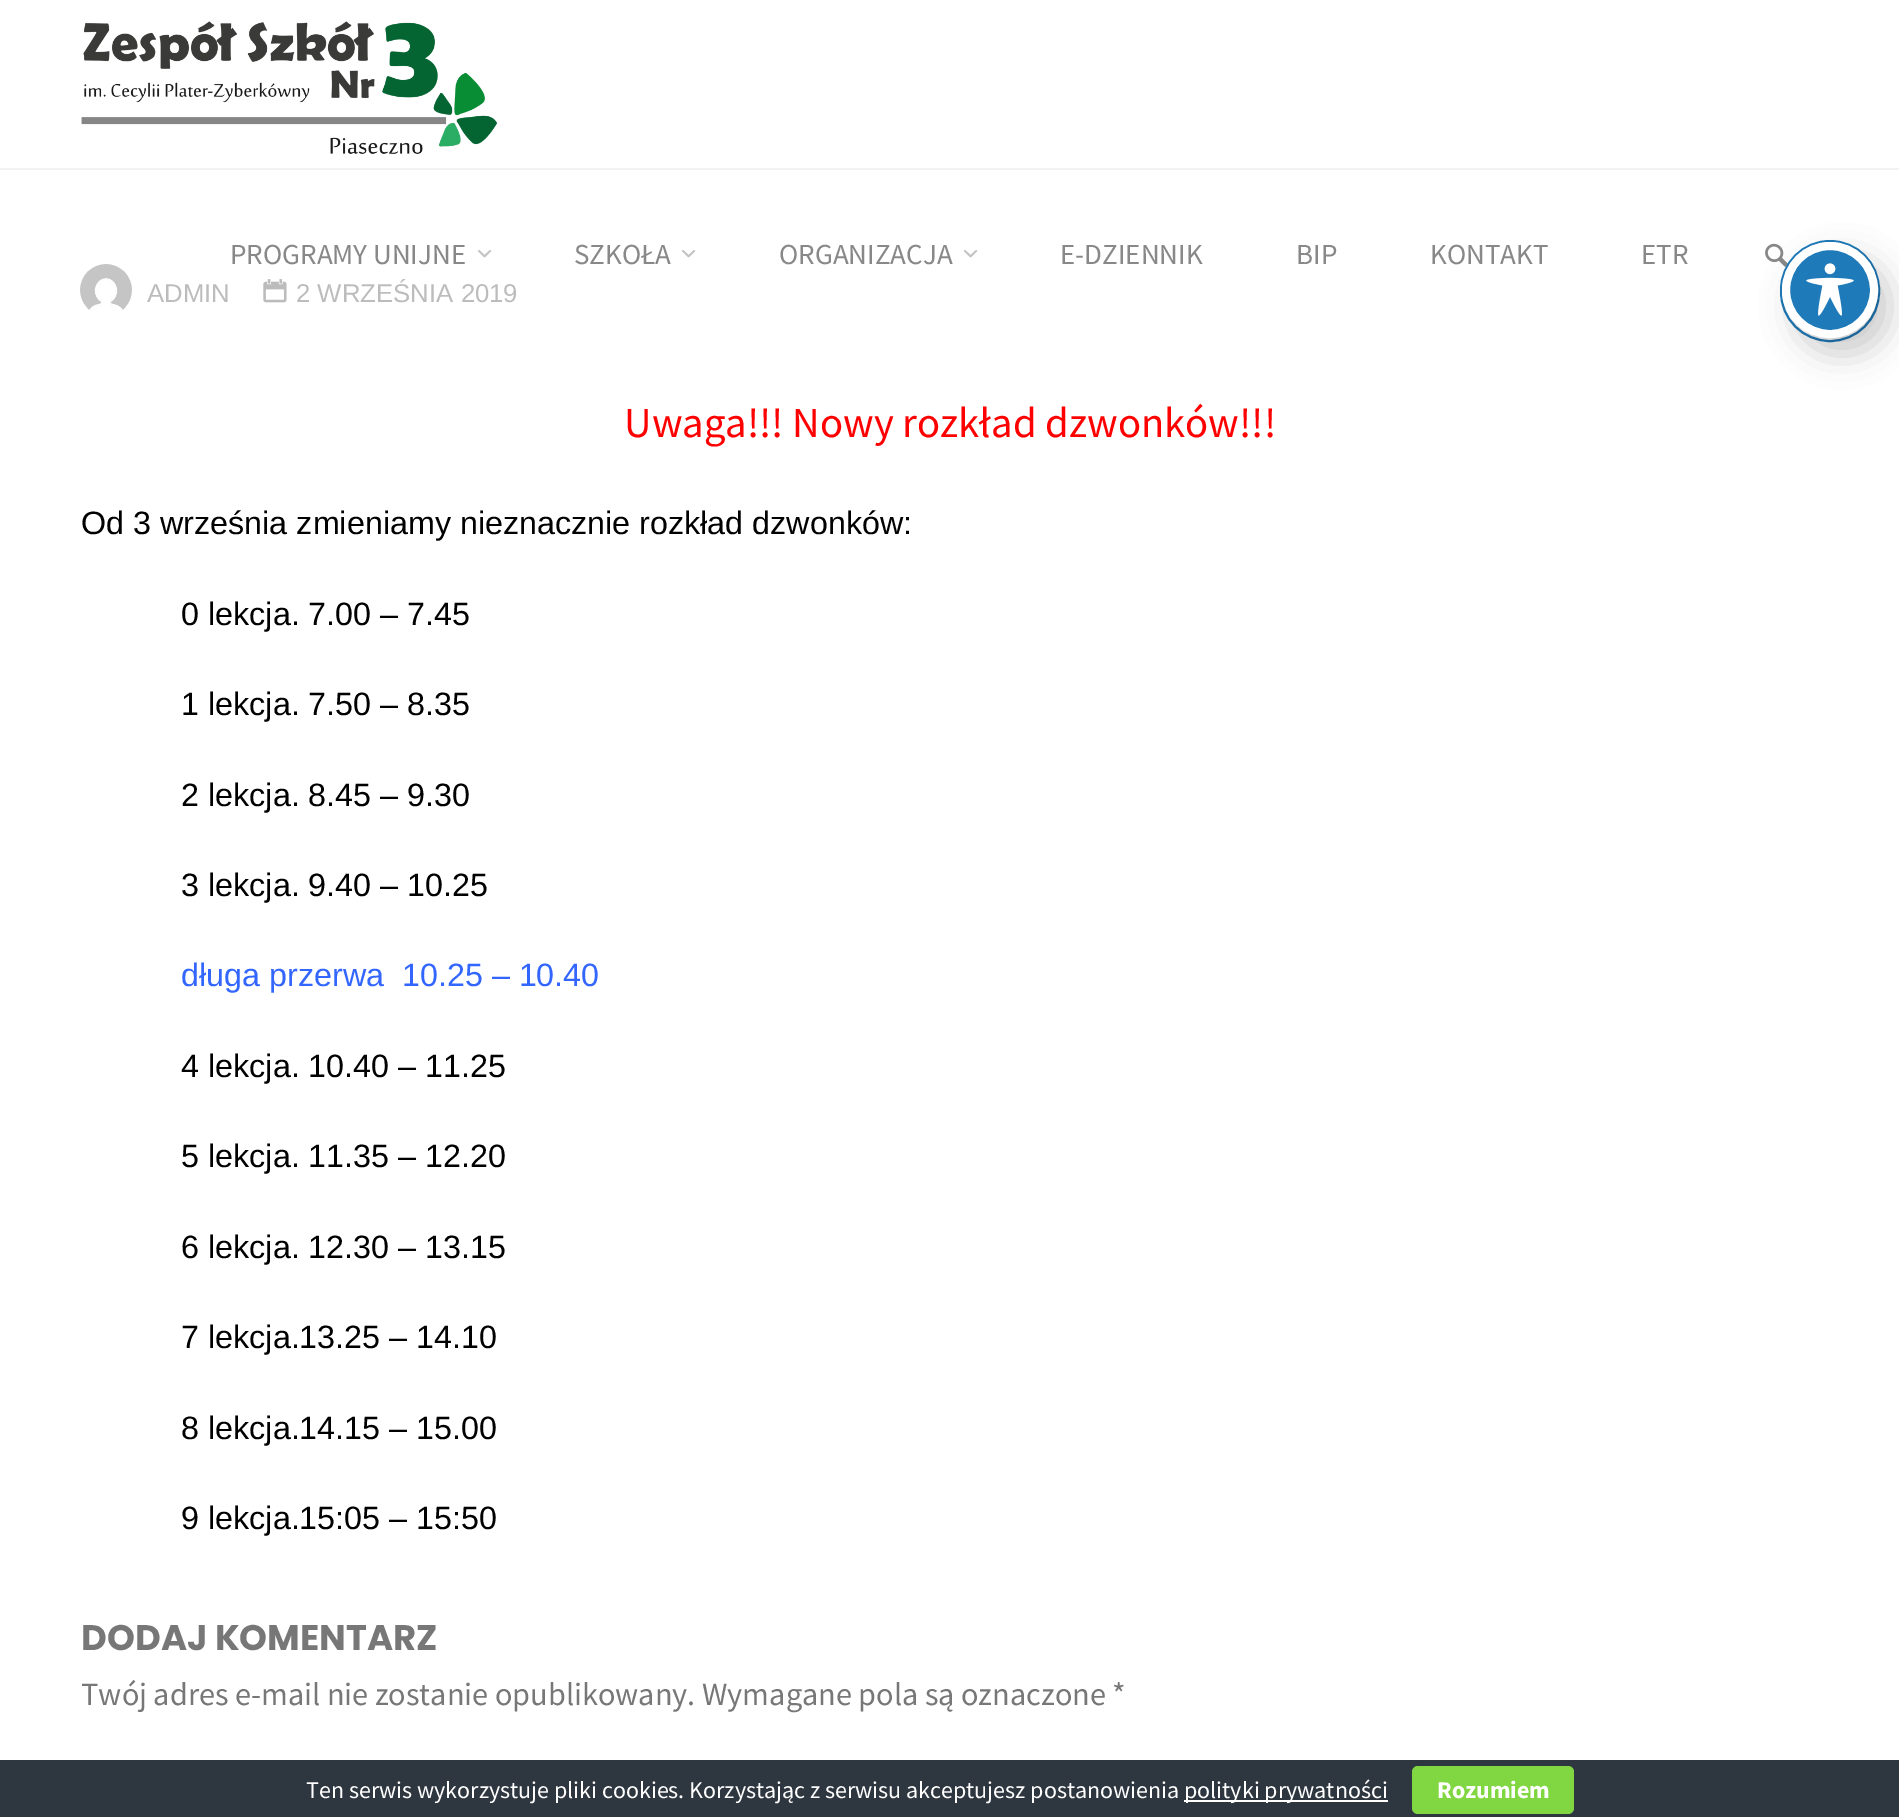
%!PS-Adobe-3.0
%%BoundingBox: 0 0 1899 1817
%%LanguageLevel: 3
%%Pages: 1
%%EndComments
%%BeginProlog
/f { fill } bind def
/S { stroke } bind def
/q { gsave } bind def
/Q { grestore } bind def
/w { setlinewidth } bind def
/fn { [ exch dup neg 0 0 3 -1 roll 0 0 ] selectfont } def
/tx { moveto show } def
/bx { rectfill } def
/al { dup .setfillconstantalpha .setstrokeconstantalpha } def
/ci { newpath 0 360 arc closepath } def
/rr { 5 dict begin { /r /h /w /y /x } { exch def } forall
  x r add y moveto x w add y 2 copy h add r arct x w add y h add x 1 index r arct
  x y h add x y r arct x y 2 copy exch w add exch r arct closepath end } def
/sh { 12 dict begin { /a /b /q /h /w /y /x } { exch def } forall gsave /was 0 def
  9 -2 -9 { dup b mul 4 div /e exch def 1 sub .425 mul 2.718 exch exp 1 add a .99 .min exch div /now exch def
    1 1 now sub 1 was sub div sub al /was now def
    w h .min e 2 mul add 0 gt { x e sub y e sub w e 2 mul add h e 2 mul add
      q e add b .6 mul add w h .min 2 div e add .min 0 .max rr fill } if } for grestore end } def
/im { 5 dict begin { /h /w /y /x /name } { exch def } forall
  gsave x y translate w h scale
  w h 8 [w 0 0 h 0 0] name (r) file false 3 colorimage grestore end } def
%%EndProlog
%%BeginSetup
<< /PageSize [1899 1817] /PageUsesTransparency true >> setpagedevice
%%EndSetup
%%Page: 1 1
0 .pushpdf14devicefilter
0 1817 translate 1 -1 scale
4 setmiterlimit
1 setgray
0 0 1899 1817 bx
0.949 setgray
0 168 1899 2 bx
(image0.raw) 81 21 417 133 im
/SourceSansPro-Regular 29 fn
0.533 setgray
(PROGRAMY UNIJNE) 230 264 tx
(image1.raw) 477 250 15 8 im
(SZKOŁA) 574 264 tx
(image1.raw) 681 250 15 8 im
(ORGANIZACJA) 779 264 tx
(image1.raw) 963 250 15 8 im
(E-DZIENNIK) 1060 264 tx
(BIP) 1296 264 tx
(KONTAKT) 1430 264 tx
(ETR) 1641 264 tx
(image2.raw) 1765 243 23 24 im
(image3.raw) 80 264 52 47 im
/LiberationSans-Regular 25.75 fn
0.737 setgray
(ADMIN) 147 302 tx
(image4.raw) 263 279 24 24 im
(2 WRZEŚNIA 2019) 296 302 tx
/SourceSansPro-Regular 42.7 fn
1 0 0 setrgbcolor
(Uwaga!!! Nowy rozkład dzwonków!!!) 624 437 tx
/LiberationSans-Regular 32.3 fn
0 setgray
(Od 3 września zmieniamy nieznacznie rozkład dzwonków:) 81 534 tx
(0 lekcja. 7.00 – 7.45) 181 625 tx
(1 lekcja. 7.50 – 8.35) 181 715 tx
(2 lekcja. 8.45 – 9.30) 181 806 tx
(3 lekcja. 9.40 – 10.25) 181 896 tx
0.2 0.4 1 setrgbcolor
(długa przerwa  10.25 – 10.40) 181 986 tx
0 setgray
(4 lekcja. 10.40 – 11.25) 181 1077 tx
(5 lekcja. 11.35 – 12.20) 181 1167 tx
(6 lekcja. 12.30 – 13.15) 181 1258 tx
(7 lekcja.13.25 – 14.10) 181 1348 tx
(8 lekcja.14.15 – 15.00) 181 1439 tx
(9 lekcja.15:05 – 15:50) 181 1529 tx
/Poppins-Bold 35.5 fn
0.467 setgray
(DODAJ KOMENTARZ) 81 1650 tx
/SourceSansPro-Regular 32.3 fn
(Twój adres e-mail nie zostanie opublikowany.) 81 1705 tx
(Wymagane pola są oznaczone *) 702 1705 tx
0.118 0.478 0.725 setrgbcolor
2 w
1781 241 98 100 49 rr S
0 setgray
1794 258 96 96 48 16 0.2 sh
0.118 0.478 0.725 setrgbcolor
1830 290 44 ci q f Q
1 setgray
8 w
S
(image5.raw) 1806 263 48 53 im
0.18 0.212 0.247 setrgbcolor
0 1760 1899 57 bx
/SourceSansPro-Regular 24 fn
1 setgray
(Ten serwis wykorzystuje pliki cookies. Korzystając z serwisu akceptujesz postanowienia) 306 1798 tx
1184 1800 204 2 bx
(polityki prywatności) 1184 1798 tx
0.506 0.843 0.259 setrgbcolor
1412 1766 162 48 6 rr f
/SourceSansPro-Bold 24 fn
1 setgray
(Rozumiem) 1437 1798 tx
.poppdf14devicefilter showpage
%%EOF
